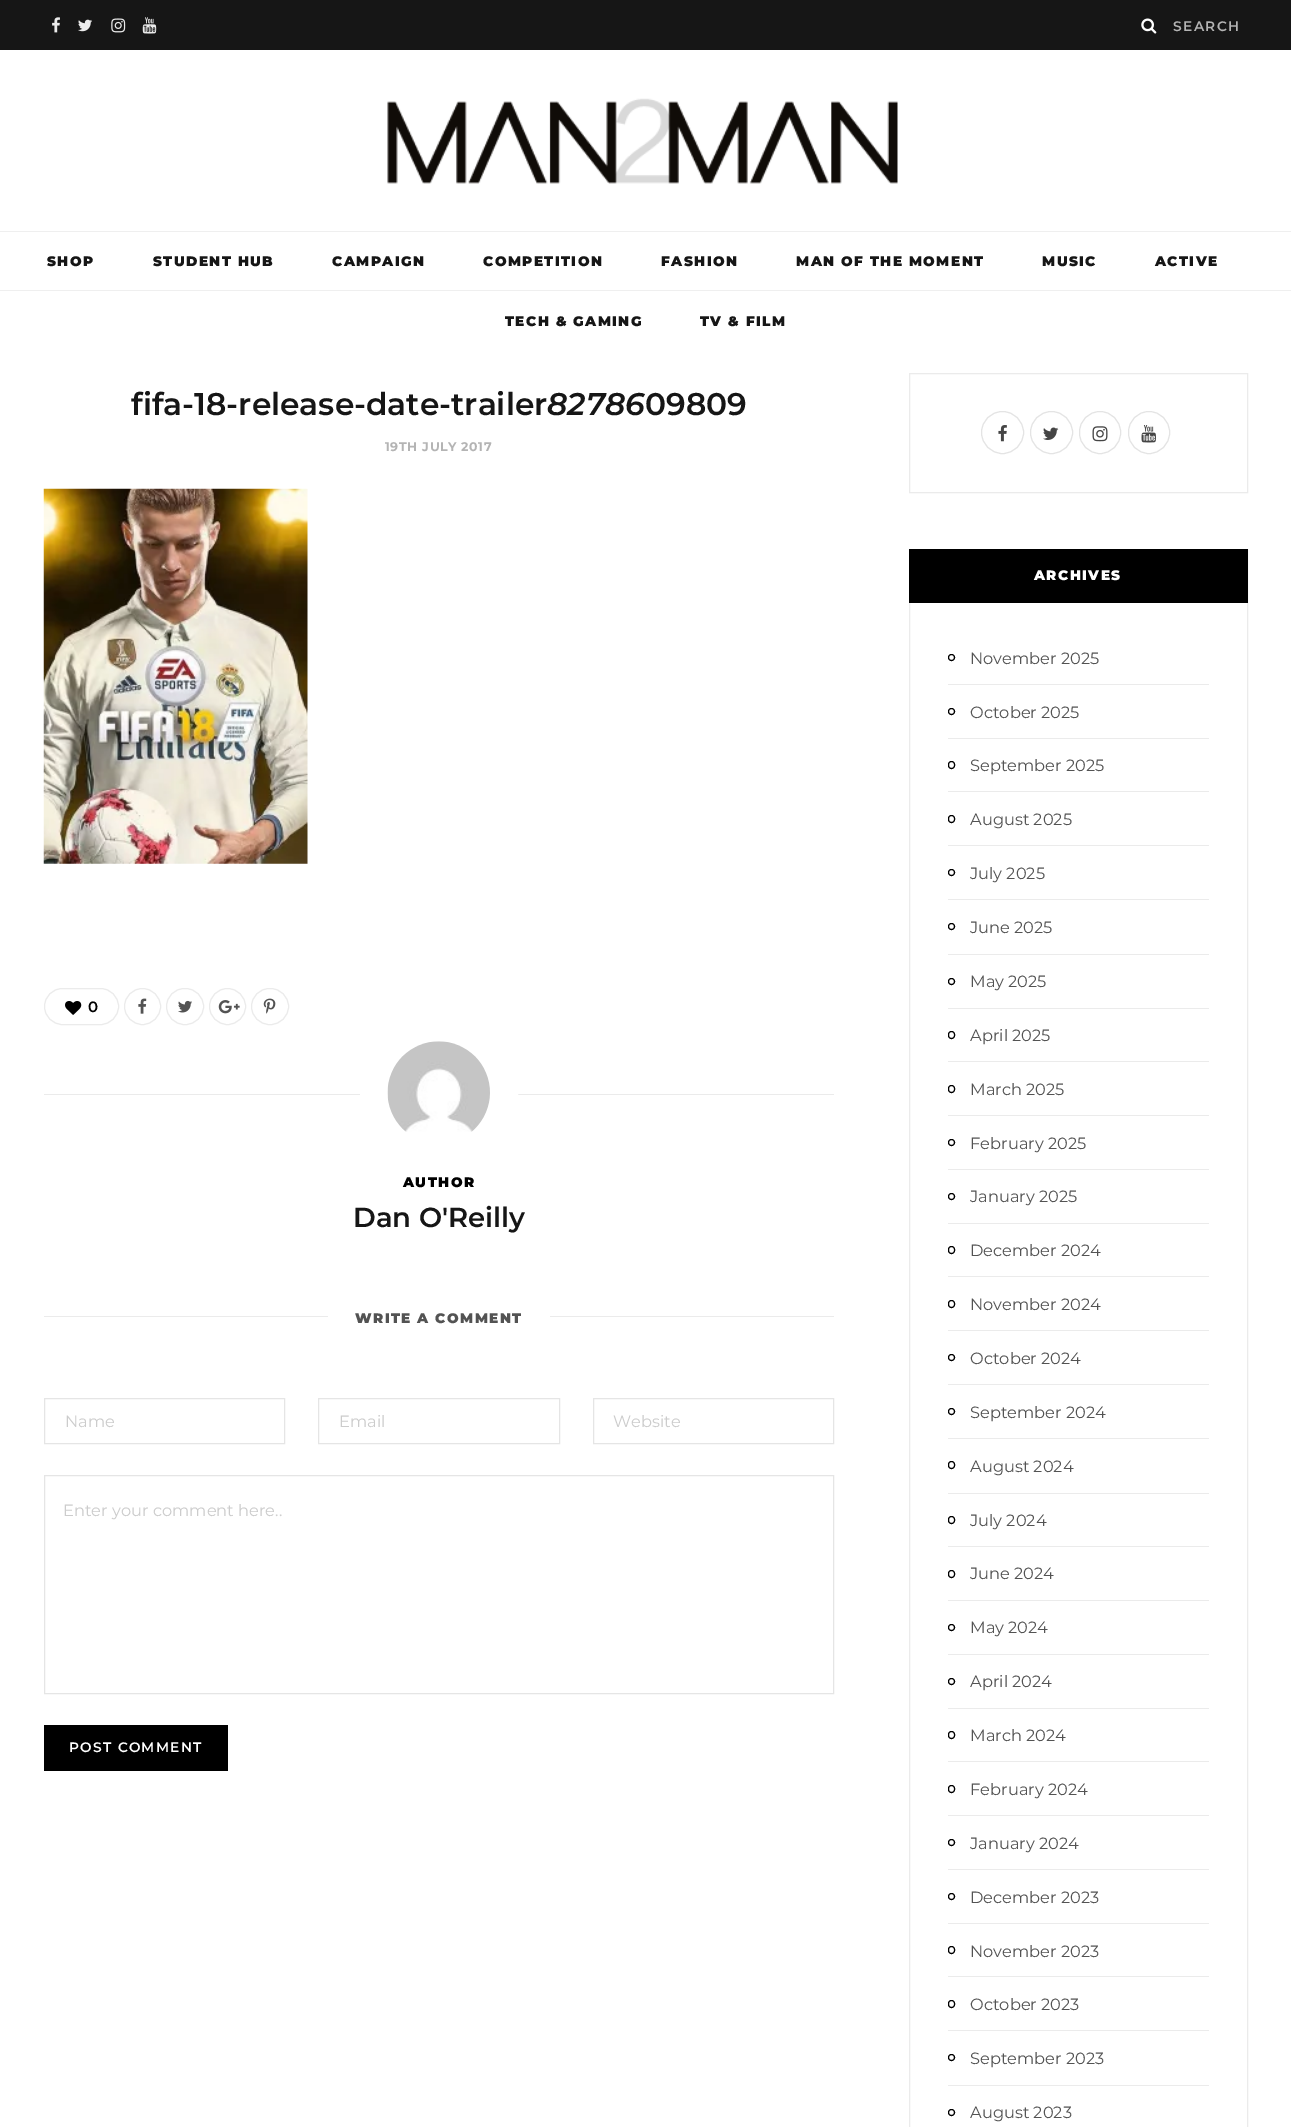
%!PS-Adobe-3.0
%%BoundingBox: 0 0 1291 2127
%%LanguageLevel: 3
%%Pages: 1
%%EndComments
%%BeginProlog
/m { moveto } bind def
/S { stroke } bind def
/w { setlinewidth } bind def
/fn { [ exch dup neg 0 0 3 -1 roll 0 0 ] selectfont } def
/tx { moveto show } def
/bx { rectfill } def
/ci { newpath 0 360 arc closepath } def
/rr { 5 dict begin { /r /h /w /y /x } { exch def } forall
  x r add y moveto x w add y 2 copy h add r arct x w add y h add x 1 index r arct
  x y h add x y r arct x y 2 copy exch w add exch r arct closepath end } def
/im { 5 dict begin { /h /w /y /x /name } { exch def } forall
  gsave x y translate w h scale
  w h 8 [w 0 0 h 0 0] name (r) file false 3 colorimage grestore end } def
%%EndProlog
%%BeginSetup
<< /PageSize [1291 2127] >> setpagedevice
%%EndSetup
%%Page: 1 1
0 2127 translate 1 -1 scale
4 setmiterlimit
1 setgray
0 0 1291 2127 bx
0.086 setgray
0 0 1291 50 bx
(image0.raw) 52 17 8 16 im
(image1.raw) 78 19 14 13 im
(image2.raw) 111 18 15 15 im
(image3.raw) 142 17 15 17 im
(image4.raw) 1141 18 16 16 im
/Montserrat-SemiBold 13.75 fn
0.706 setgray
1173 31 m 1.4 0 (SEARCH) ashow
(image5.raw) 387 98 511 86 im
0.937 setgray
0 231 1291 1 bx
0 290 1291 1 bx
/Montserrat-Black 13.75 fn
0.086 setgray
47 266 m 1.4 0 (SHOP) ashow
153 266 m 1.4 0 (STUDENT HUB) ashow
332 266 m 1.4 0 (CAMPAIGN) ashow
483 266 m 1.4 0 (COMPETITION) ashow
661 266 m 1.4 0 (FASHION) ashow
796 266 m 1.4 0 (MAN OF THE MOMENT) ashow
1042 266 m 1.4 0 (MUSIC) ashow
1155 266 m 1.4 0 (ACTIVE) ashow
505 326 m 1.4 0 (TECH & GAMING) ashow
700 326 m 1.4 0 (TV & FILM) ashow
/Montserrat-SemiBold 31.25 fn
(fifa-18-release-date-trailer) 131 415 tx
/Montserrat-SemiBoldItalic 31.25 fn
(82786) 547 415 tx
/Montserrat-SemiBold 31.25 fn
(09809) 645 415 tx
/Montserrat-Bold 12.5 fn
0.706 setgray
385 451 m 0.6 0 (19TH JULY 2017) ashow
(image6.raw) 43 488 265 376 im
0.922 setgray
44.5 988.5 74 36 18 rr S
(image7.raw) 65 1001 17 14 im
/Montserrat-SemiBold 15 fn
0 setgray
(0) 88 1012 tx
0.922 setgray
142.5 1006.5 18 ci S
(image8.raw) 138 998 9 16 im
166.5 988.5 37 36 18 rr S
(image9.raw) 178 1000 14 13 im
227.5 1006.5 18 ci S
(image10.raw) 218 1000 22 14 im
251.5 988.5 37 36 18 rr S
(image11.raw) 263 998 13 16 im
44 1094 790 1 bx
1 setgray
28 w
374 1028 130 129 64.5 rr S
(image12.raw) 387 1041 103 91 im
/Montserrat-Black 13.75 fn
0 setgray
403 1187 m 1.4 0 (AUTHOR) ashow
/Montserrat-SemiBold 27.5 fn
0.086 setgray
(Dan O'Reilly) 353 1227 tx
0.922 setgray
44 1316 790 1 bx
1 setgray
328 1316 222 1 bx
/Montserrat-Black 13.75 fn
0.325 setgray
355 1323 m 1.4 0 (WRITE A COMMENT) ashow
0.898 setgray
1 w
44.5 1398.5 240 45 rectstroke
/Montserrat-Regular 16.25 fn
0.8 setgray
(Name) 65 1427 tx
0.898 setgray
318.5 1398.5 241 45 rectstroke
0.8 setgray
(Email) 339 1427 tx
0.898 setgray
593.5 1398.5 240 45 rectstroke
0.8 setgray
(Website) 613 1427 tx
0.898 setgray
44.5 1475.5 789 218 rectstroke
0.8 setgray
(Enter your comment here..) 63 1516 tx
0 setgray
44 1725 184 46 bx
/Montserrat-SemiBold 13.75 fn
1 setgray
69 1752 m 1.25 0 (POST COMMENT) ashow
0.922 setgray
909.5 373.5 338 119 rectstroke
0.894 setgray
1002.5 432.5 21 ci S
(image13.raw) 998 425 9 17 im
1051.5 432.5 21 ci S
(image14.raw) 1043 427 16 13 im
1079.5 411.5 41 42 20.5 rr S
(image15.raw) 1092 426 16 16 im
1128.5 411.5 41 42 20.5 rr S
(image16.raw) 1141 425 15 18 im
0.922 setgray
909.5 549.5 338 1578 rectstroke
0 setgray
909 549 339 54 bx
/Montserrat-Black 13.75 fn
1 setgray
1034 580 m 1.4 0 (ARCHIVES) ashow
0.922 setgray
948 684 261 1 bx
0 setgray
951.5 657.5 3 ci S
/Montserrat-Regular 16.25 fn
0.325 setgray
(November 2025) 970 664 tx
0.922 setgray
948 738 261 1 bx
0 setgray
951.5 711.5 3 ci S
0.325 setgray
(October 2025) 970 718 tx
0.922 setgray
948 791 261 1 bx
0 setgray
948.5 761.5 6 7 3 rr S
0.325 setgray
(September 2025) 970 771 tx
0.922 setgray
948 845 261 1 bx
0 setgray
948.5 815.5 6 7 3 rr S
0.325 setgray
(August 2025) 970 825 tx
0.922 setgray
948 899 261 1 bx
0 setgray
951.5 872.5 3 ci S
0.325 setgray
(July 2025) 970 879 tx
0.922 setgray
948 954 261 1 bx
0 setgray
951.5 926.5 3 ci S
0.325 setgray
(June 2025) 970 933 tx
0.922 setgray
948 1008 261 1 bx
0 setgray
951.5 981.5 3 ci S
0.325 setgray
(May 2025) 970 987 tx
0.922 setgray
948 1061 261 1 bx
0 setgray
948.5 1031.5 6 7 3 rr S
0.325 setgray
(April 2025) 970 1041 tx
0.922 setgray
948 1115 261 1 bx
0 setgray
948.5 1085.5 6 7 3 rr S
0.325 setgray
(March 2025) 970 1095 tx
0.922 setgray
948 1169 261 1 bx
0 setgray
951.5 1142.5 3 ci S
0.325 setgray
(February 2025) 970 1149 tx
0.922 setgray
948 1223 261 1 bx
0 setgray
951.5 1196.5 3 ci S
0.325 setgray
(January 2025) 970 1202 tx
0.922 setgray
948 1276 261 1 bx
0 setgray
948.5 1246.5 6 7 3 rr S
0.325 setgray
(December 2024) 970 1256 tx
0.922 setgray
948 1330 261 1 bx
0 setgray
948.5 1300.5 6 7 3 rr S
0.325 setgray
(November 2024) 970 1310 tx
0.922 setgray
948 1384 261 1 bx
0 setgray
951.5 1357.5 3 ci S
0.325 setgray
(October 2024) 970 1364 tx
0.922 setgray
948 1438 261 1 bx
0 setgray
951.5 1411.5 3 ci S
0.325 setgray
(September 2024) 970 1418 tx
0.922 setgray
948 1493 261 1 bx
0 setgray
948.5 1461.5 6 7 3 rr S
0.325 setgray
(August 2024) 970 1472 tx
0.922 setgray
948 1546 261 1 bx
0 setgray
948.5 1516.5 6 7 3 rr S
0.325 setgray
(July 2024) 970 1526 tx
0.922 setgray
948 1600 261 1 bx
0 setgray
948.5 1570.5 6 7 3 rr S
0.325 setgray
(June 2024) 970 1579 tx
0.922 setgray
948 1654 261 1 bx
0 setgray
951.5 1627.5 3 ci S
0.325 setgray
(May 2024) 970 1633 tx
0.922 setgray
948 1708 261 1 bx
0 setgray
951.5 1681.5 3 ci S
0.325 setgray
(April 2024) 970 1687 tx
0.922 setgray
948 1761 261 1 bx
0 setgray
948.5 1731.5 6 7 3 rr S
0.325 setgray
(March 2024) 970 1741 tx
0.922 setgray
948 1815 261 1 bx
0 setgray
948.5 1785.5 6 7 3 rr S
0.325 setgray
(February 2024) 970 1795 tx
0.922 setgray
948 1869 261 1 bx
0 setgray
951.5 1842.5 3 ci S
0.325 setgray
(January 2024) 970 1849 tx
0.922 setgray
948 1923 261 1 bx
0 setgray
951.5 1896.5 3 ci S
0.325 setgray
(December 2023) 970 1903 tx
0.922 setgray
948 1976 261 1 bx
0 setgray
948.5 1946.5 6 7 3 rr S
0.325 setgray
(November 2023) 970 1957 tx
0.922 setgray
948 2030 261 1 bx
0 setgray
948.5 2000.5 6 7 3 rr S
0.325 setgray
(October 2023) 970 2010 tx
0.922 setgray
948 2085 261 1 bx
0 setgray
951.5 2057.5 3 ci S
0.325 setgray
(September 2023) 970 2064 tx
0 setgray
951.5 2112.5 3 ci S
0.325 setgray
(August 2023) 970 2118 tx
showpage
%%EOF
